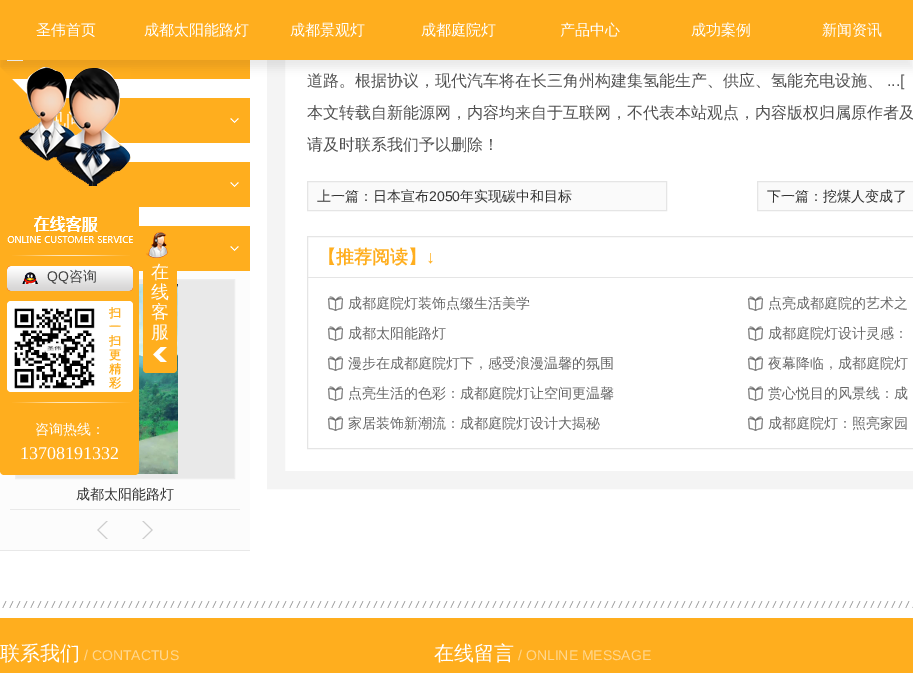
%!PS-Adobe-3.0
%%BoundingBox: 0 0 913 673
%%LanguageLevel: 3
%%Pages: 1
%%EndComments
%%BeginProlog
/m { moveto } bind def
/l { lineto } bind def
/c { curveto } bind def
/h { closepath } bind def
/f { fill } bind def
/S { stroke } bind def
/q { gsave } bind def
/Q { grestore } bind def
/w { setlinewidth } bind def
/fn { [ exch dup neg 0 0 3 -1 roll 0 0 ] selectfont } def
/tx { moveto show } def
/bx { rectfill } def
/al { dup .setfillconstantalpha .setstrokeconstantalpha } def
/rr { 5 dict begin { /r /h /w /y /x } { exch def } forall
  x r add y moveto x w add y 2 copy h add r arct x w add y h add x 1 index r arct
  x y h add x y r arct x y 2 copy exch w add exch r arct closepath end } def
/sh { 12 dict begin { /a /b /q /h /w /y /x } { exch def } forall gsave /was 0 def
  9 -2 -9 { dup b mul 4 div /e exch def 1 sub .425 mul 2.718 exch exp 1 add a .99 .min exch div /now exch def
    1 1 now sub 1 was sub div sub al /was now def
    w h .min e 2 mul add 0 gt { x e sub y e sub w e 2 mul add h e 2 mul add
      q e add b .6 mul add w h .min 2 div e add .min 0 .max rr fill } if } for grestore end } def
/im { 5 dict begin { /h /w /y /x /name } { exch def } forall
  gsave x y translate w h scale
  w h 8 [w 0 0 h 0 0] name (r) file false 3 colorimage grestore end } def
%%EndProlog
%%BeginSetup
<< /PageSize [913 673] /PageUsesTransparency true >> setpagedevice
%%EndSetup
%%Page: 1 1
0 .pushpdf14devicefilter
0 673 translate 1 -1 scale
4 setmiterlimit
1 setgray
0 0 913 673 bx
0.957 setgray
18 w
276 -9 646 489 rectstroke
1 0.682 0.118 setrgbcolor
0 60 250 19 bx
1 setgray
7 60 16 1 bx
0 setgray
0 8 913 60 0 4 0.08 sh
1 0.682 0.118 setrgbcolor
0 0 913 60 bx
/WenQuanYiZenHei-Medium 15 fn
1 setgray
(圣伟首页) 36 35 tx
(成都太阳能路灯) 144 35 tx
(成都景观灯) 290 35 tx
(成都庭院灯) 421 35 tx
(产品中心) 560 35 tx
(成功案例) 691 35 tx
(新闻资讯) 822 35 tx
/WenQuanYiZenHei-Medium 16 fn
0.314 setgray
(道路。根据协议，现代汽车将在长三角州构建集氢能生产、供应、氢能充电设施、) 307 86 tx
/LiberationSans-Regular 16 fn
(...[) 887 86 tx
/WenQuanYiZenHei-Medium 16 fn
(本文转载自新能源网，内容均来自于互联网，不代表本站观点，内容版权归属原作者及) 307 118 tx
(请及时联系我们予以删除！) 307 150 tx
0.98 setgray
307.5 181.5 m 666.5 181.5 l 666.5 210.5 l 307.5 210.5 l h q f Q
0.898 setgray
1 w
S
/WenQuanYiZenHei-Medium 14 fn
0.2 setgray
(上一篇：日本宣布) 317 201 tx
/LiberationSans-Regular 14 fn
(2050) 429 201 tx
/WenQuanYiZenHei-Medium 14 fn
(年实现碳中和目标) 460 201 tx
0.98 setgray
757.5 181.5 m 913.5 181.5 l 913.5 210.5 l 757.5 210.5 l h q f Q
0.898 setgray
S
0.2 setgray
(下一篇：挖煤人变成了) 767 201 tx
0.898 setgray
307.5 236.5 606 212 rectstroke
308 277 605 1 bx
/WenQuanYiZenHei-Bold 18 fn
1 0.682 0.118 setrgbcolor
(【推荐阅读】) 318 263 tx
/LiberationSans-Bold 18 fn
(↓) 426 263 tx
(image0.raw) 328 296 15 15 im
/WenQuanYiZenHei-Medium 14 fn
0.404 setgray
(成都庭院灯装饰点缀生活美学) 348 308 tx
(image0.raw) 748 296 15 15 im
(点亮成都庭院的艺术之) 768 308 tx
(image0.raw) 328 326 15 15 im
(成都太阳能路灯) 348 338 tx
(image0.raw) 748 326 15 15 im
(成都庭院灯设计灵感：) 768 338 tx
(image0.raw) 328 356 15 15 im
(漫步在成都庭院灯下，感受浪漫温馨的氛围) 348 368 tx
(image0.raw) 748 356 15 15 im
(夜幕降临，成都庭院灯) 768 368 tx
(image0.raw) 328 386 15 15 im
(点亮生活的色彩：成都庭院灯让空间更温馨) 348 398 tx
(image0.raw) 748 386 15 15 im
(赏心悦目的风景线：成) 768 398 tx
(image0.raw) 328 416 15 15 im
(家居装饰新潮流：成都庭院灯设计大揭秘) 348 428 tx
(image0.raw) 748 416 15 15 im
(成都庭院灯：照亮家园) 768 428 tx
1 0.682 0.118 setrgbcolor
54 98 196 45 bx
(image1.raw) 230 118 9 5 im
109 162 141 45 bx
(image1.raw) 230 182 9 5 im
0.988 setgray
0 271 250 279 bx
0.91 setgray
0 550 250 1 bx
1 0.682 0.118 setrgbcolor
139 226 111 45 bx
(image1.raw) 230 246 9 5 im
0.914 setgray
10 509 230 1 bx
15.5 279.5 m 234.5 279.5 l 234.5 478.5 l 15.5 478.5 l h q f Q
0.933 setgray
S
(image2.raw) 137 284 41 190 im
0.2 setgray
(成都太阳能路灯) 76 499 tx
(image3.raw) 97 521 11 18 im
(image4.raw) 142 521 11 18 im
(image5.raw) 2 601 911 7 im
1 0.682 0.118 setrgbcolor
0 67 m 139 206 l 0 206 l h f
(image6.raw) 19 67 112 119 im
0 206 m 139 206 l 139 471 l 139 473 137 475 135 475 c 4 475 l 2 475 0 473 0 471 c h f
(image7.raw) 7 216 126 27 im
(image8.raw) 12 255 118 1 im
(image9.raw) 7 266 126 25 im
(image10.raw) 22 272 16 12 im
/LiberationSans-Regular 14 fn
0.251 setgray
(QQ) 47 281 tx
/WenQuanYiZenHei-Medium 14 fn
(咨询) 69 281 tx
1 setgray
7 301 126 91 4 rr f
(image11.raw) 14 308 82 81 im
/WenQuanYiZenHei-Bold 12 fn
1 0.682 0.118 setrgbcolor
(扫) 109 317 tx
(一) 109 331 tx
(扫) 109 345 tx
(更) 109 359 tx
(精) 109 373 tx
(彩) 109 387 tx
(image8.raw) 12 402 118 1 im
/WenQuanYiZenHei-Medium 14 fn
1 setgray
(咨询热线：) 35 434 tx
/LiberationSerif-Regular 18 fn
(13708191332) 20 459 tx
1 0.682 0.118 setrgbcolor
143 227 34 146 4 rr f
(image12.raw) 153 347 14 15 im
(image13.raw) 146 232 22 26 im
/WenQuanYiZenHei-Medium 18 fn
1 setgray
(在) 151 278 tx
(线) 151 298 tx
(客) 151 318 tx
(服) 151 338 tx
1 0.682 0.118 setrgbcolor
0 618 913 55 bx
/WenQuanYiZenHei-Medium 20 fn
1 setgray
(联系我们) 0 660 tx
/LiberationSans-Regular 14 fn
1 0.843 0.561 setrgbcolor
(/ CONTACTUS) 84 660 tx
/WenQuanYiZenHei-Medium 20 fn
1 setgray
(在线留言) 434 660 tx
/LiberationSans-Regular 14 fn
1 0.843 0.561 setrgbcolor
(/ ONLINE MESSAGE) 518 660 tx
.poppdf14devicefilter showpage
%%EOF
